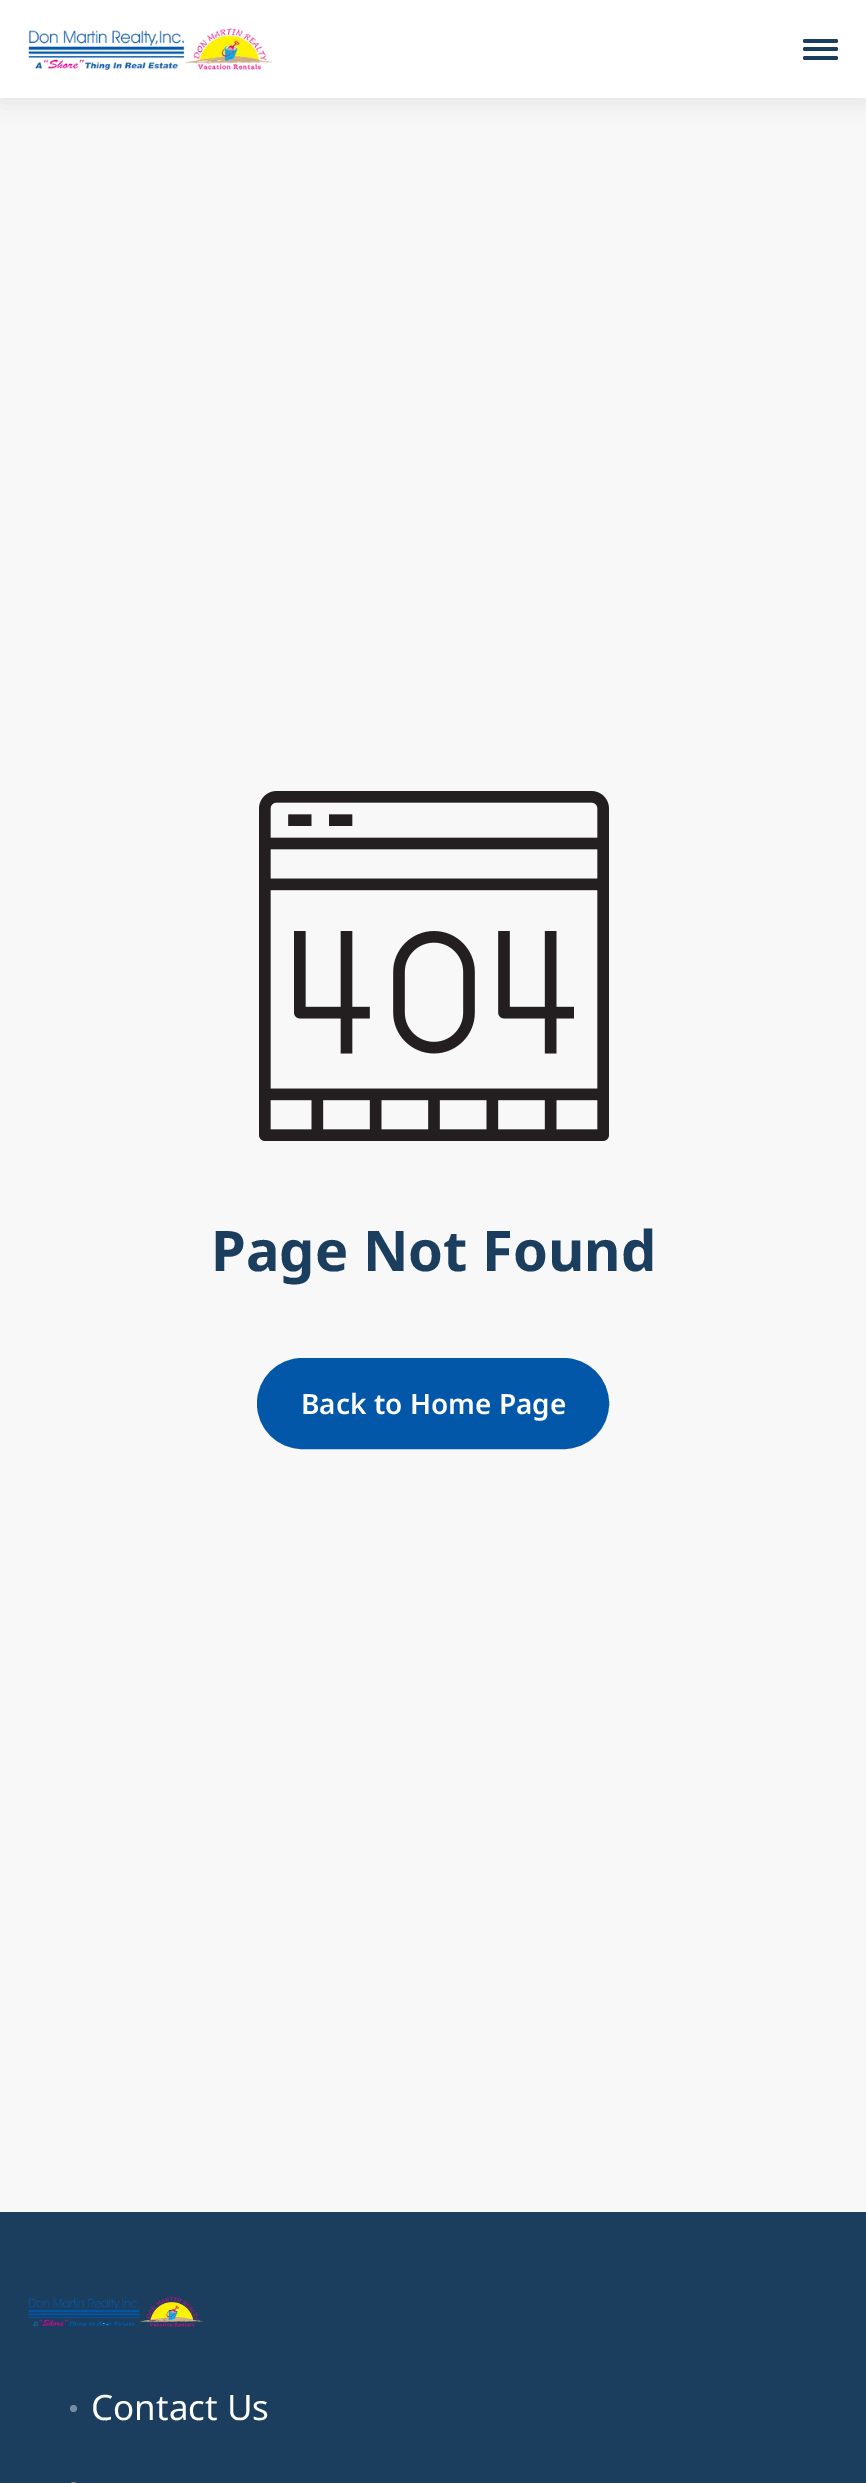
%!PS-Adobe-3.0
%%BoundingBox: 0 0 866 2483
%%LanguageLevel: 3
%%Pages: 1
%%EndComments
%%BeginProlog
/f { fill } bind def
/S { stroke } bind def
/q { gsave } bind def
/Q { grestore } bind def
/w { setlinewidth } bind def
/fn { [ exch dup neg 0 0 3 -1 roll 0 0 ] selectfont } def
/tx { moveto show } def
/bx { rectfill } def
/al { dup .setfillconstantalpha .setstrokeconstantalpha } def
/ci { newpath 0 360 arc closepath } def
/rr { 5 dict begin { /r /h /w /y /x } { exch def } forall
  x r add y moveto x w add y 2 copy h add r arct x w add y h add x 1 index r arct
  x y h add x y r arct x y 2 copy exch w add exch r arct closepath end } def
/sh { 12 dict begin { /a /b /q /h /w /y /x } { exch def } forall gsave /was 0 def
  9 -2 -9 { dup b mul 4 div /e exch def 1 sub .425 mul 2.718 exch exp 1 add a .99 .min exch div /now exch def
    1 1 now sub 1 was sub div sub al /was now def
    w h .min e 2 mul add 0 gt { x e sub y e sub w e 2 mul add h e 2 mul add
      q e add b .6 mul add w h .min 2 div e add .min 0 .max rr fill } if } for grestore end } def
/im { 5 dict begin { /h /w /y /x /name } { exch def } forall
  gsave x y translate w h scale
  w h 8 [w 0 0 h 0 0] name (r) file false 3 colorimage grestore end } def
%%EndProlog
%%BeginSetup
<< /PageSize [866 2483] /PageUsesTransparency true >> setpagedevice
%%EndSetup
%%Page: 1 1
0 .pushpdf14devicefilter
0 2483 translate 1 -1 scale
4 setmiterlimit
0.973 setgray
0 0 866 2483 bx
0 setgray
0 4 866 98 0 10.5 0.08 sh
1 setgray
0 0 866 98 bx
(image0.raw) 28 28 245 42 im
0.106 0.243 0.373 setrgbcolor
803 39 35 4 2 rr f
803 47 35 4 2 rr f
803 56 35 4 2 rr f
(image1.raw) 259 791 350 350 im
/NotoSans-Bold 56 fn
(Page Not Found) 211 1271 tx
0.008 0.341 0.659 setrgbcolor
258 1359 350 89 44.5 rr q f Q
2 w
S
/NotoSans-SemiBold 28 fn
1 setgray
(Back to Home Page) 301 1414 tx
0.106 0.243 0.373 setrgbcolor
0 2212 866 271 bx
(image2.raw) 28 2296 175 31 im
0.463 0.545 0.624 setrgbcolor
73.5 2408.5 3.5 ci f
/NotoSans-Regular 35 fn
1 setgray
(Contact Us) 91 2420 tx
0.463 0.545 0.624 setrgbcolor
70 2482 7 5 3.5 rr f
.poppdf14devicefilter showpage
%%EOF
